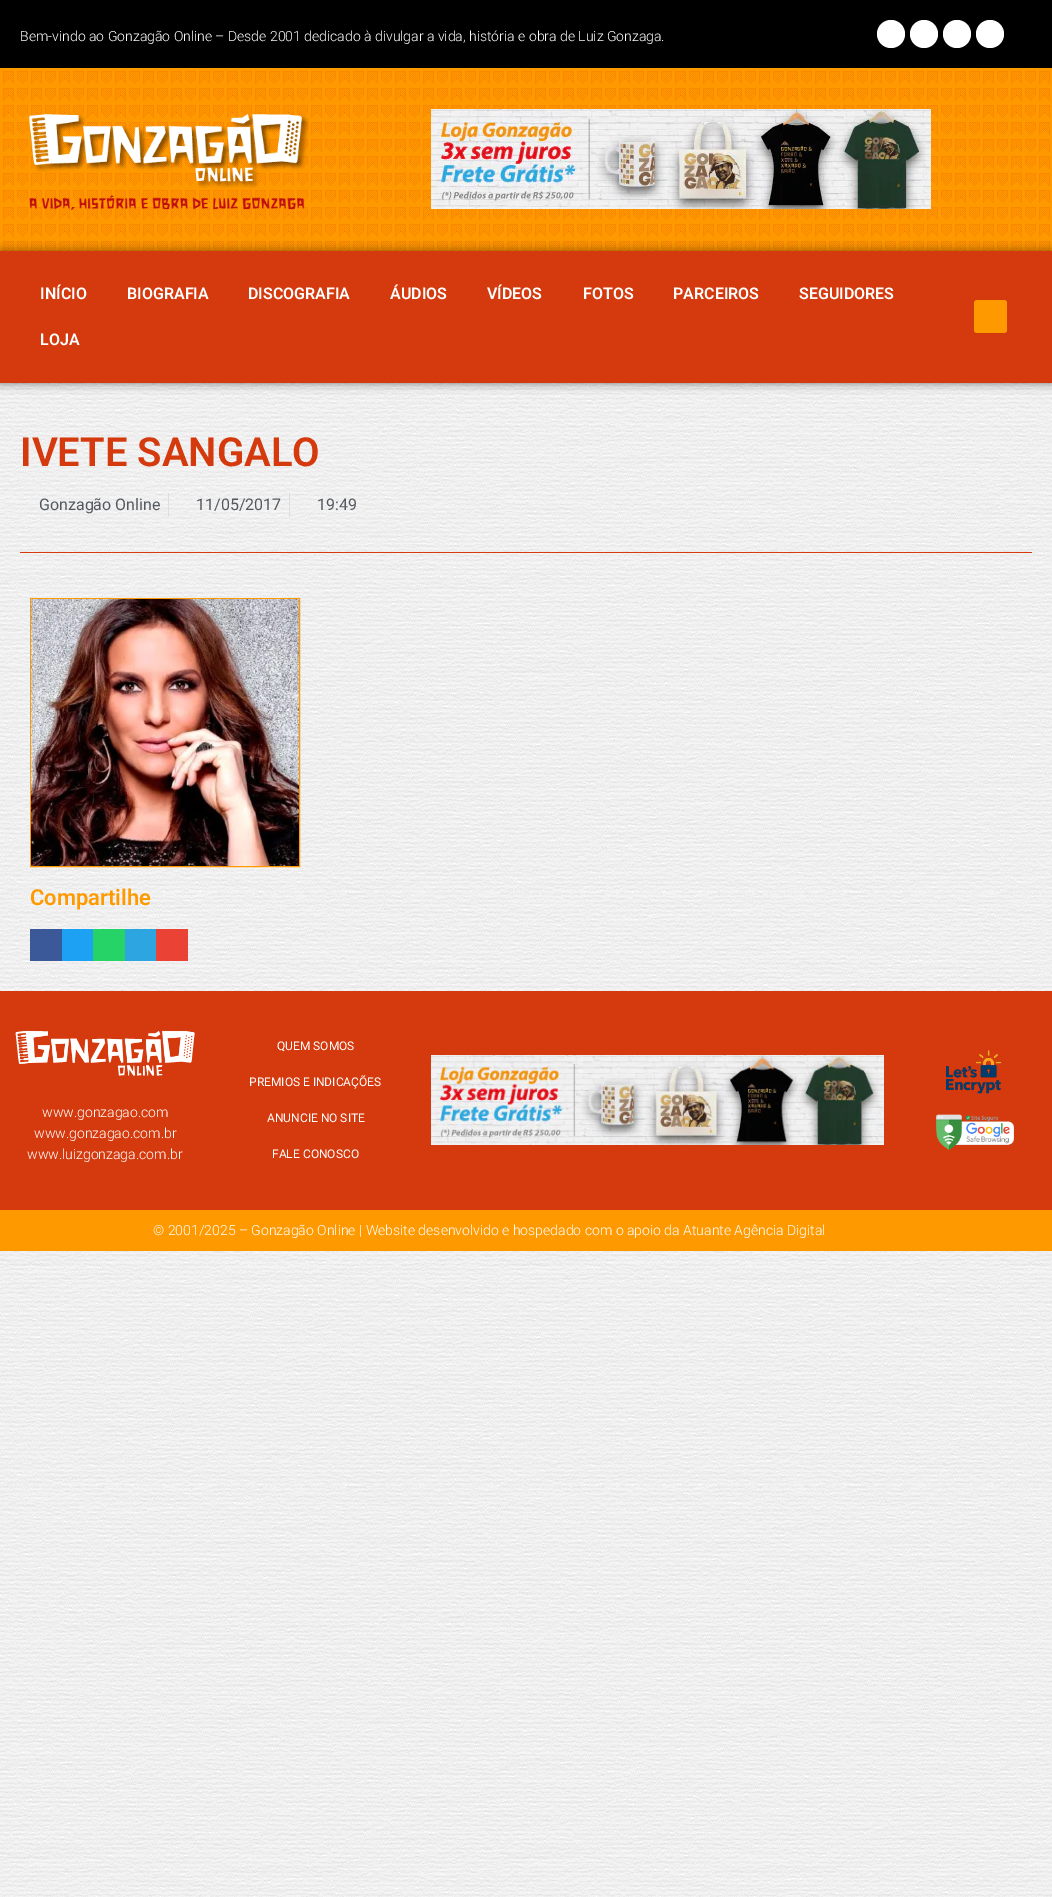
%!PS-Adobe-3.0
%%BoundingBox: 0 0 1052 1897
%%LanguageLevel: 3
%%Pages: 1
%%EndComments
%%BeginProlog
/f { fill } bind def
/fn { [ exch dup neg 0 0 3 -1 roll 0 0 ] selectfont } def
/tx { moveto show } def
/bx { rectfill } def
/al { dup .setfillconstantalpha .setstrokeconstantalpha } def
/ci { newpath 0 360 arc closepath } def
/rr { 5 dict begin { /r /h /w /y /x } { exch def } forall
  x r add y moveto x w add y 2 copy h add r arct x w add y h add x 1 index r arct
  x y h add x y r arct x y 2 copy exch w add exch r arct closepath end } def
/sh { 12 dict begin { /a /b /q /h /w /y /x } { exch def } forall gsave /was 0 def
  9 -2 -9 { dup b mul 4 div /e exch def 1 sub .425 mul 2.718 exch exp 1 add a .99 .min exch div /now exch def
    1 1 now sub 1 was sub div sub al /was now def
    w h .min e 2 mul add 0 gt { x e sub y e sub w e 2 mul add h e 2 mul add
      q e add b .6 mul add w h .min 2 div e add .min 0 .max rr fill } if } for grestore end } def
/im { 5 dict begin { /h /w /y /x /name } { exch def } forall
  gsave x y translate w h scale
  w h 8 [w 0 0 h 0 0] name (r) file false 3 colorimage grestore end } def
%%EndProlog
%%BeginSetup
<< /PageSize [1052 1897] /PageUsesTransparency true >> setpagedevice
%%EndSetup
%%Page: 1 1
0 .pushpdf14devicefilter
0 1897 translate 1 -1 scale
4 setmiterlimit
1 setgray
0 0 1052 1897 bx
(image0.raw) 0 383 1052 1514 im
0 setgray
0 0 1052 68 bx
/Roboto-Light 14 fn
1 setgray
(Bem-vindo ao Gonzagão Online – Desde 2001 dedicado à divulgar a vida, história e obra de Luiz Gonzaga.) 20 41 tx
891 34 14 ci f
924 34 14 ci f
957 34 14 ci f
990 34 14 ci f
1 0.6 0 setrgbcolor
0 68 1052 183 bx
(image1.raw) 3 71 1047 180 im
(image2.raw) 28 113 281 97 im
(image3.raw) 431 109 500 100 im
0 setgray
0 251 1052 132 0 5 0.5 sh
0.831 0.227 0.051 setrgbcolor
0 251 1052 132 bx
/Roboto-SemiBold 16 fn
1 setgray
(INÍCIO) 40 299 tx
(BIOGRAFIA) 127 299 tx
(DISCOGRAFIA) 248 299 tx
(ÁUDIOS) 390 299 tx
(VÍDEOS) 487 299 tx
(FOTOS) 583 299 tx
(PARCEIROS) 673 299 tx
(SEGUIDORES) 799 299 tx
(LOJA) 40 345 tx
1 0.6 0 setrgbcolor
974 300 33 33 3 rr f
/Roboto-SemiBold 40 fn
0.831 0.227 0.051 setrgbcolor
(IVETE SANGALO) 20 466 tx
/Roboto-Regular 16 fn
0.329 0.349 0.373 setrgbcolor
(Gonzagão Online) 39 510 tx
0.867 setgray
168 493 1 24 bx
0.329 0.349 0.373 setrgbcolor
(11/05/2017) 196 510 tx
0.867 setgray
289 493 1 24 bx
0.329 0.349 0.373 setrgbcolor
(19:49) 317 510 tx
0.831 0.227 0.051 setrgbcolor
20 552 1012 1 bx
1 0.6 0 setrgbcolor
30.5 598.5 269 268 rectstroke
(image4.raw) 31 599 268 267 im
/Roboto-SemiBold 22 fn
(Compartilhe) 30 905 tx
0.231 0.349 0.596 setrgbcolor
30 929 32 32 bx
0.114 0.631 0.949 setrgbcolor
62 929 31 32 bx
0.145 0.827 0.4 setrgbcolor
93 929 32 32 bx
0.173 0.647 0.878 setrgbcolor
125 929 31 32 bx
0.918 0.263 0.208 setrgbcolor
156 929 32 32 bx
0.831 0.227 0.051 setrgbcolor
0 991 1052 219 bx
(image5.raw) 15 1030 180 46 im
/Roboto-Light 14 fn
1 setgray
(www.gonzagao.com) 42 1117 tx
(www.gonzagao.com.br) 34 1138 tx
(www.luizgonzaga.com.br) 27 1159 tx
/Roboto-Regular 12 fn
(QUEM SOMOS) 277 1050 tx
(PREMIOS E INDICAÇÕES) 249 1086 tx
(ANUNCIE NO SITE) 267 1122 tx
(FALE CONOSCO) 272 1158 tx
(image6.raw) 431 1055 453 90 im
(image7.raw) 946 1050 55 44 im
(image8.raw) 936 1114 78 36 im
1 0.6 0 setrgbcolor
0 1210 1052 41 bx
/Roboto-Light 14 fn
1 setgray
(© 2001/2025 – Gonzagão Online | Website desenvolvido e hospedado com o apoio da Atuante Agência Digital) 153 1235 tx
.poppdf14devicefilter showpage
%%EOF
